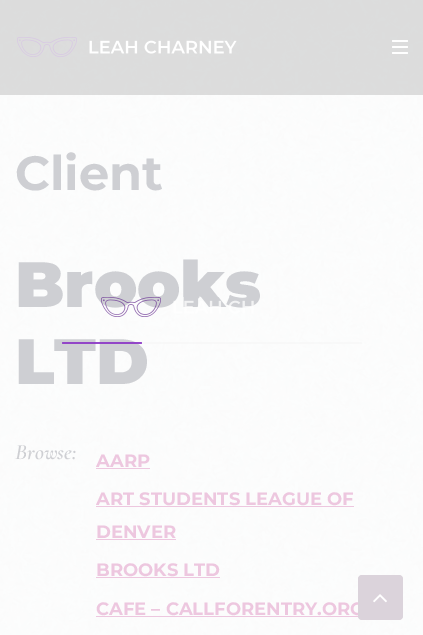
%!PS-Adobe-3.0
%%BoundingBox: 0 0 423 635
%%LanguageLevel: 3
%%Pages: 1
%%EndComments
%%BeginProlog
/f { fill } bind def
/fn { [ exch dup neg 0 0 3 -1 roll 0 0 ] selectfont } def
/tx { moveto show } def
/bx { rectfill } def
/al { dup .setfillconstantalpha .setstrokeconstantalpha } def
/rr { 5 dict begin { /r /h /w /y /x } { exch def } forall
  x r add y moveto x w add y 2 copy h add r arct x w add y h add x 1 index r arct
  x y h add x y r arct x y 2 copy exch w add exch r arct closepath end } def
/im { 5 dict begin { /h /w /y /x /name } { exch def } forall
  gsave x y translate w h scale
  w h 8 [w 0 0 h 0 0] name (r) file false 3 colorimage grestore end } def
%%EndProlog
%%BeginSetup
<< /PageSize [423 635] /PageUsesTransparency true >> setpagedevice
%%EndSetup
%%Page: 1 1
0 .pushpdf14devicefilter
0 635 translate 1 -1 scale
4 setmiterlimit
1 setgray
0 0 423 635 bx
(image0.raw) 0 0 423 635 im
0.5 al
0.741 setgray
0 0 423 95 bx
1 al
(image1.raw) 17 37 220 20 im
1 setgray
392 46 16 2 1 rr f
392 40 16 2 1 rr f
392 52 16 2 1 rr f
/Montserrat-Bold 48 fn
0.808 0.812 0.827 setrgbcolor
(Client) 15 190 tx
/Montserrat-Black 64 fn
(Brooks) 15 307 tx
(LTD) 15 384 tx
/CormorantGaramond-SemiBoldItalic 22 fn
(Browse:) 15 459 tx
/Montserrat-Bold 18 fn
0.929 0.78 0.875 setrgbcolor
(AARP) 96 467 tx
96 468 54 1 bx
(ART STUDENTS LEAGUE OF) 96 505 tx
96 506 258 1 bx
(DENVER) 96 538 tx
96 539 80 1 bx
(BROOKS LTD) 96 576 tx
96 577 124 1 bx
(CAFE – CALLFORENTRY.ORG) 96 615 tx
96 616 268 1 bx
(image2.raw) 101 297 153 20 im
0.74 al
0.969 setgray
62 342 300 2 1 rr f
0.447 0.047 0.729 setrgbcolor
62 342 80 2 1 rr f
1 al
0.859 0.827 0.859 setrgbcolor
358 575 45 45 4 rr f
(image3.raw) 373 594 14 9 im
.poppdf14devicefilter showpage
%%EOF
